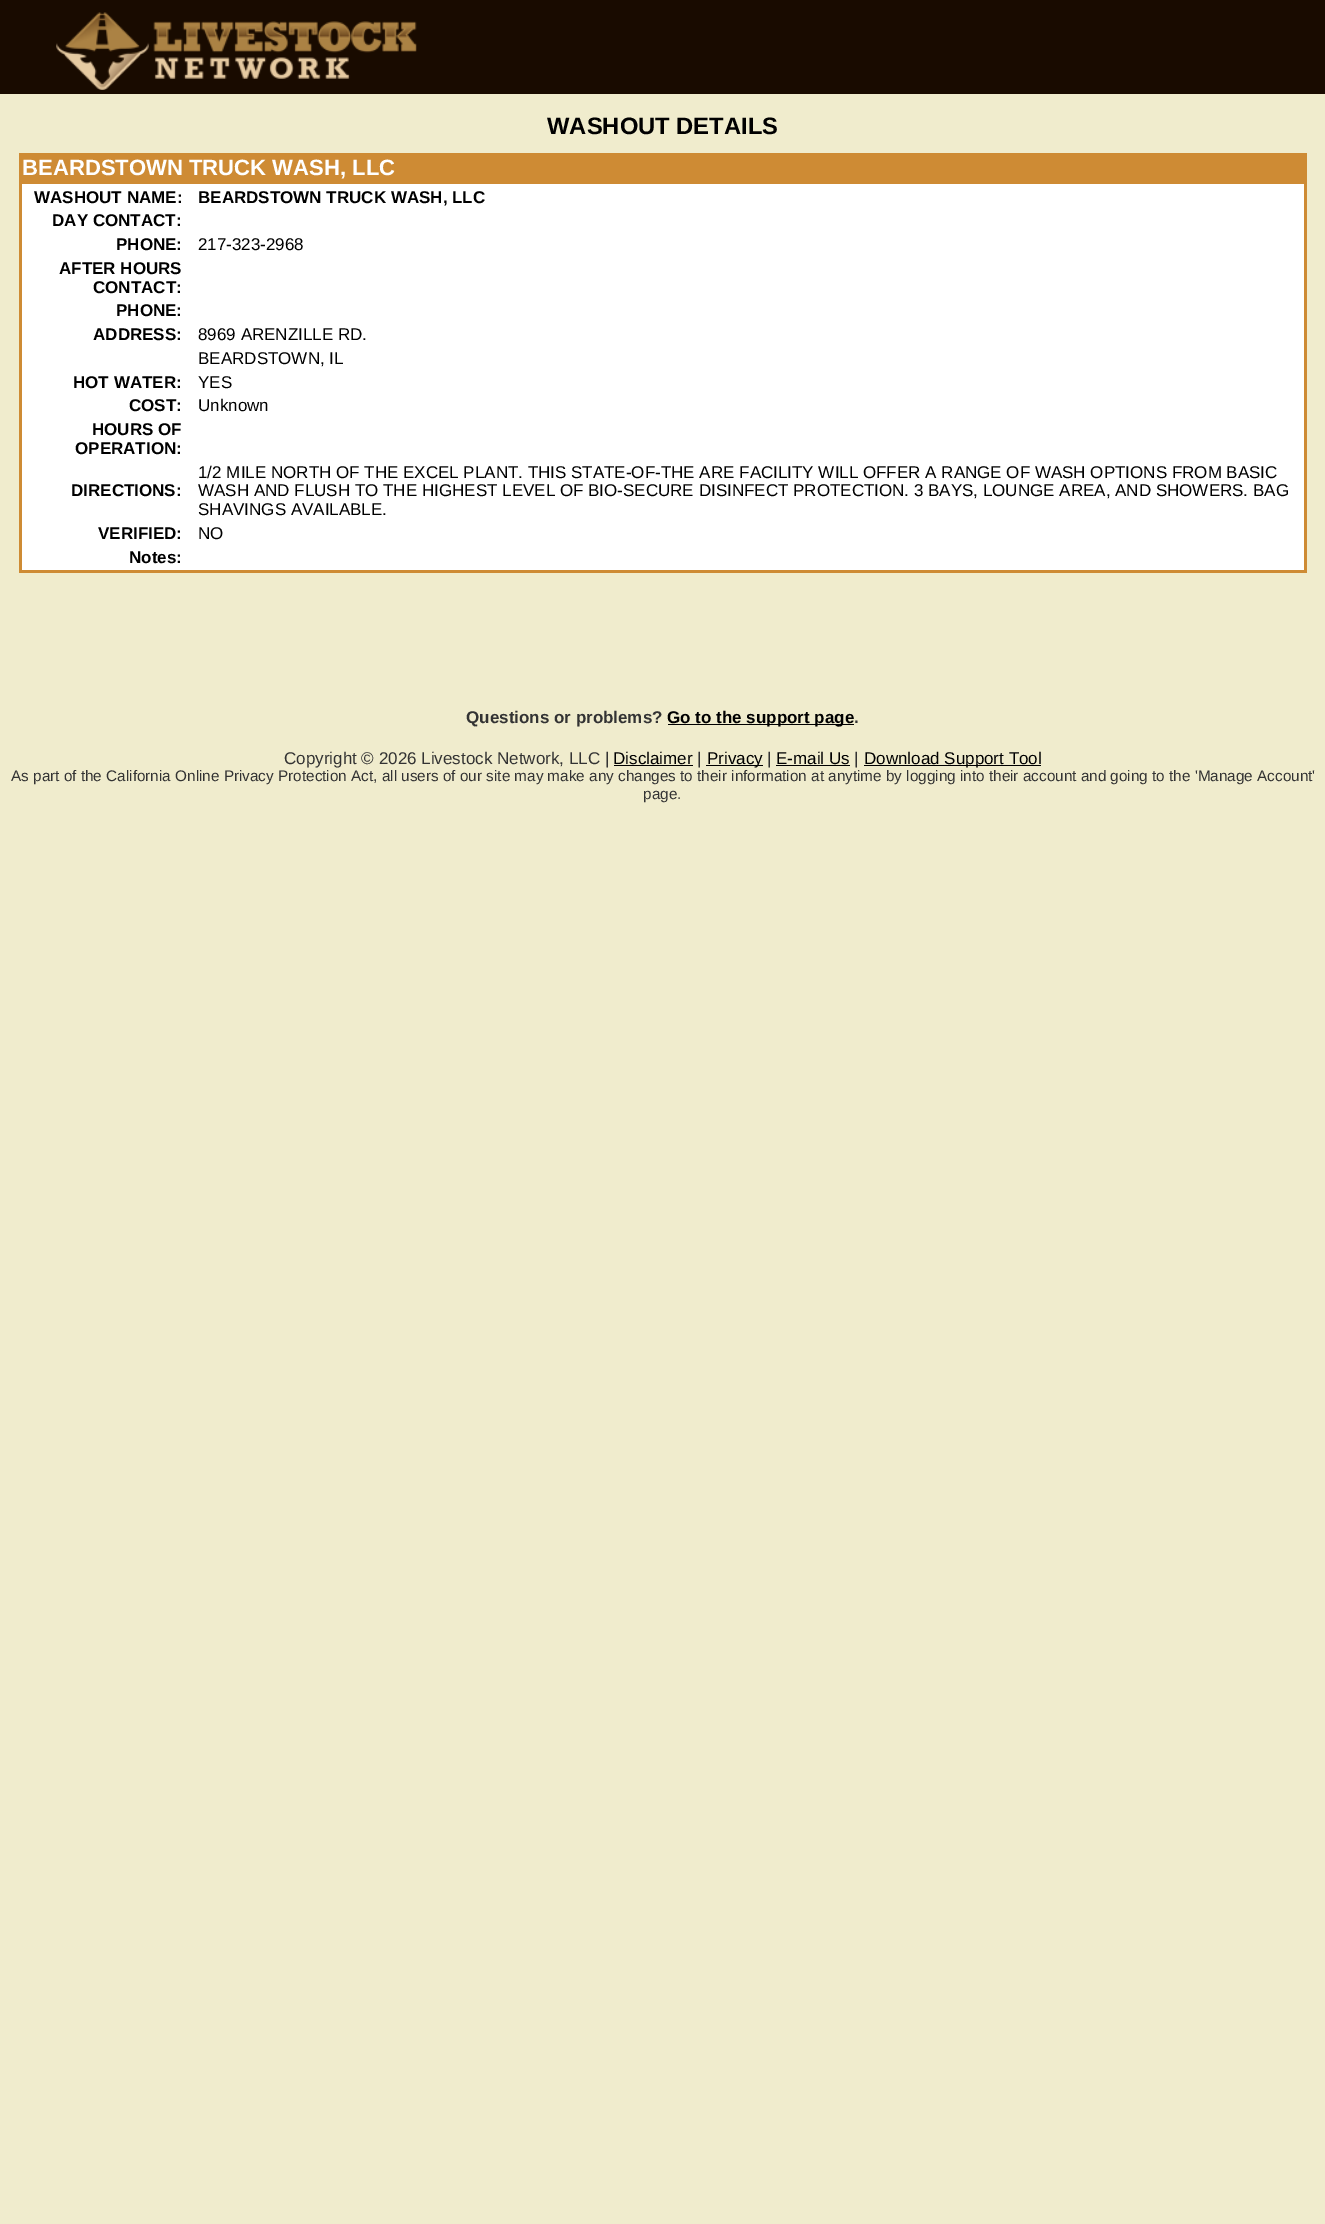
%!PS-Adobe-3.0
%%BoundingBox: 0 0 1325 2224
%%LanguageLevel: 3
%%Pages: 1
%%EndComments
%%BeginProlog
/fn { [ exch dup neg 0 0 3 -1 roll 0 0 ] selectfont } def
/tx { moveto show } def
/bx { rectfill } def
/im { 5 dict begin { /h /w /y /x /name } { exch def } forall
  gsave x y translate w h scale
  w h 8 [w 0 0 h 0 0] name (r) file false 3 colorimage grestore end } def
%%EndProlog
%%BeginSetup
<< /PageSize [1325 2224] >> setpagedevice
%%EndSetup
%%Page: 1 1
0 2224 translate 1 -1 scale
4 setmiterlimit
0.941 0.925 0.804 setrgbcolor
0 0 1325 2224 bx
0.098 0.043 0 setrgbcolor
0 0 1325 94 bx
(image0.raw) 56 12 361 78 im
/LiberationSans-Bold 23.75 fn
0 setgray
(WASHOUT DETAILS) 547 134 tx
1 setgray
22 184 1282 386 bx
0.808 0.545 0.204 setrgbcolor
1304 153 3 420 bx
19 570 1287 3 bx
19 184 3 389 bx
19 153 1285 31 bx
/LiberationSans-Bold 22.1 fn
1 setgray
(BEARDSTOWN TRUCK WASH, LLC) 22 175 tx
/LiberationSans-Bold 17 fn
0 setgray
(WASHOUT NAME:) 34 203 tx
(BEARDSTOWN TRUCK WASH, LLC) 198 203 tx
(DAY CONTACT:) 52 226 tx
(PHONE:) 116 250 tx
/LiberationSans-Regular 17 fn
(217-323-2968) 198 250 tx
/LiberationSans-Bold 17 fn
(AFTER HOURS) 59 274 tx
(CONTACT:) 93 293 tx
(PHONE:) 116 316 tx
(ADDRESS:) 93 340 tx
/LiberationSans-Regular 17 fn
(8969 ARENZILLE RD.) 198 340 tx
(BEARDSTOWN, IL) 198 364 tx
/LiberationSans-Bold 17 fn
(HOT WATER:) 73 388 tx
/LiberationSans-Regular 17 fn
(YES) 198 388 tx
/LiberationSans-Bold 17 fn
(COST:) 129 411 tx
/LiberationSans-Regular 17 fn
(Unknown) 198 411 tx
/LiberationSans-Bold 17 fn
(HOURS OF) 92 435 tx
(OPERATION:) 75 454 tx
(DIRECTIONS:) 71 496 tx
/LiberationSans-Regular 17 fn
(1/2 MILE NORTH OF THE EXCEL PLANT. THIS STATE-OF-THE ARE FACILITY WILL OFFER A RANGE OF WASH OPTIONS FROM BASIC) 198 478 tx
(WASH AND FLUSH TO THE HIGHEST LEVEL OF BIO-SECURE DISINFECT PROTECTION. 3 BAYS, LOUNGE AREA, AND SHOWERS. BAG) 198 496 tx
(SHAVINGS AVAILABLE.) 198 515 tx
/LiberationSans-Bold 17 fn
(VERIFIED:) 98 539 tx
/LiberationSans-Regular 17 fn
(NO) 198 539 tx
/LiberationSans-Bold 17 fn
(Notes:) 129 563 tx
0.2 setgray
(Questions or problems?) 466 723 tx
0 setgray
668 724 186 1 bx
(Go to the support page) 667 723 tx
0.2 setgray
(.) 854 723 tx
/LiberationSans-Regular 17 fn
(Copyright © 2026 Livestock Network, LLC |) 284 764 tx
0 setgray
(Disclaimer) 613 764 tx
614 765 79 1 bx
0.2 setgray
(|) 697 764 tx
0 setgray
706 765 57 1 bx
(Privacy) 707 764 tx
0.2 setgray
(|) 767 764 tx
0 setgray
(E-mail Us) 776 764 tx
776 765 74 1 bx
0.2 setgray
(|) 854 764 tx
0 setgray
864 765 177 1 bx
(Download Support Tool) 864 764 tx
/LiberationSans-Regular 15.3 fn
0.2 setgray
(As part of the California Online Privacy Protection Act, all users of our site may make any changes to their information at anytime by logging into their account and going to the 'Manage Account') 11 781 tx
(page.) 643 799 tx
showpage
%%EOF
